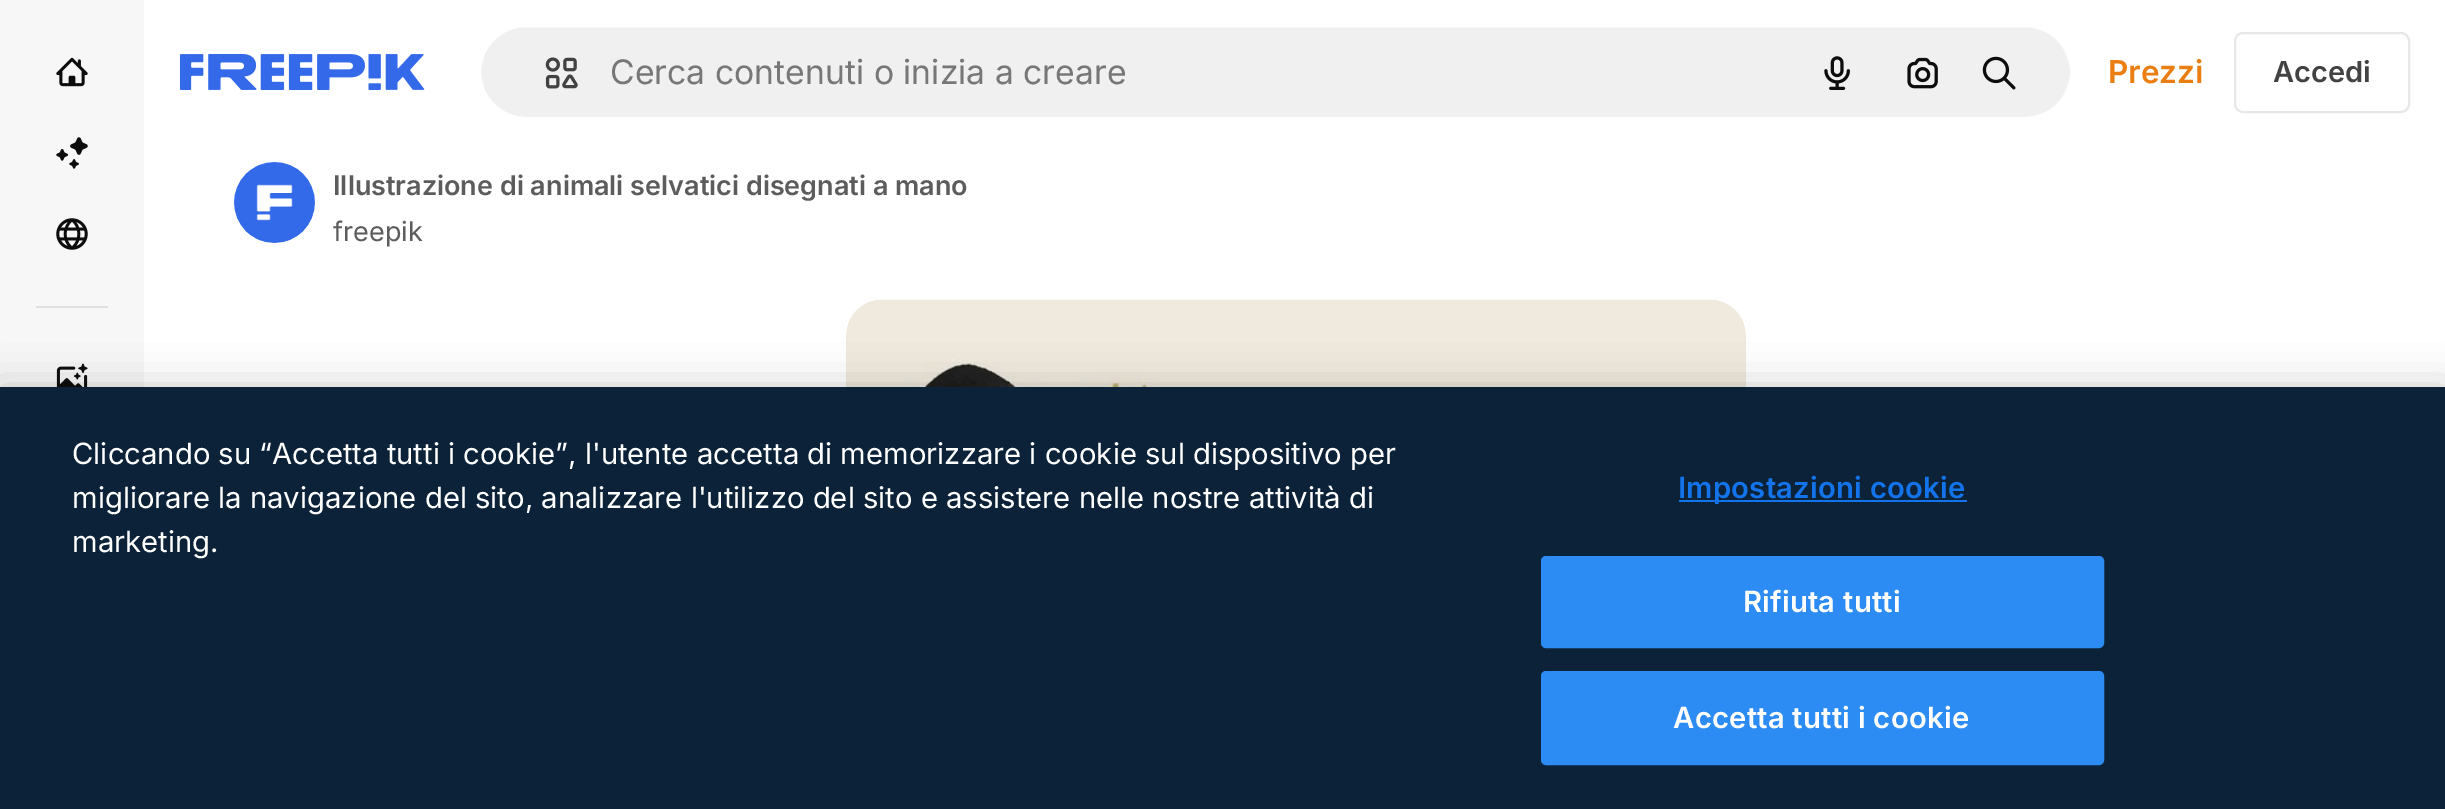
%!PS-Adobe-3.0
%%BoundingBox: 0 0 2445 809
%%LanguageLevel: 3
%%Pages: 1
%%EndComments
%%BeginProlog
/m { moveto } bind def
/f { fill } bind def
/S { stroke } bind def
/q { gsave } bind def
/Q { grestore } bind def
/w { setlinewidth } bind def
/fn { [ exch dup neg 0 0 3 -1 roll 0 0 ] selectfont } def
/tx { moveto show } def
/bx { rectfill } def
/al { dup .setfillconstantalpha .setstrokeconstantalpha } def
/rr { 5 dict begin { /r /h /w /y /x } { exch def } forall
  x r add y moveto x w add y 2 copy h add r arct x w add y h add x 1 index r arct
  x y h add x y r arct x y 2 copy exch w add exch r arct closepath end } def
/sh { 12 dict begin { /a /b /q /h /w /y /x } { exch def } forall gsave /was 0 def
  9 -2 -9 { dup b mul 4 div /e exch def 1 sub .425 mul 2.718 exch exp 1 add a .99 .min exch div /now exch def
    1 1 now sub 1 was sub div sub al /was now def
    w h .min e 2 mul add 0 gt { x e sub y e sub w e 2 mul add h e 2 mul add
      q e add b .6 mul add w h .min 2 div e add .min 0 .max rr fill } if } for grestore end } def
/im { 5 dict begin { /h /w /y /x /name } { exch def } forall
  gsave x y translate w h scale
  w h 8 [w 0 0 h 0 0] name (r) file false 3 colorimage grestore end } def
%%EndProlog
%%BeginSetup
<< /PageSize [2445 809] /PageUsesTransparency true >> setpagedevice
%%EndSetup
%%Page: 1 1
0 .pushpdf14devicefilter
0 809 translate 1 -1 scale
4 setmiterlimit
1 setgray
0 0 2445 809 bx
0.969 setgray
0 0 144 387 bx
(image0.raw) 56 57 32 30 im
(image1.raw) 56 137 32 32 im
(image2.raw) 56 218 32 32 im
0.878 setgray
36 306 72 2 bx
(image3.raw) 56 363 32 24 im
(image4.raw) 180 54 245 36 im
0.941 setgray
480 26 1591 92 46 rr q f Q
1 setgray
2 w
S
(image5.raw) 545 57 33 32 im
/Inter-Regular 33.75 fn
0.467 setgray
(Cerca contenuti o inizia a creare) 610 84 tx
(image6.raw) 1824 56 26 34 im
(image7.raw) 1907 57 31 32 im
(image8.raw) 1982 56 34 34 im
/Inter-SemiBold 31.5 fn
0.918 0.494 0.067 setrgbcolor
(Prezzi) 2108 83 tx
0.906 setgray
2235 33 174 79 8 rr S
/Inter-SemiBold 29 fn
0.259 setgray
(Accedi) 2273 82 tx
(image9.raw) 234 162 81 81 im
/Inter-SemiBold 27 fn
0.361 setgray
(Illustrazione di animali selvatici disegnati a mano) 333 195 tx
/Inter-Regular 27 fn
(freepik) 333 241 tx
(image10.raw) 846 299 900 88 im
0 setgray
0 387 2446 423 0 20 0.2 sh
0.043 0.133 0.224 setrgbcolor
0 387 2445 422 bx
/Inter-Regular 29.25 fn
1 setgray
(Cliccando su “Accetta tutti i cookie”, l'utente accetta di memorizzare i cookie sul dispositivo per) 72 464 tx
(migliorare la navigazione del sito, analizzare l'utilizzo del sito e assistere nelle nostre attività di) 72 508 tx
(marketing.) 72 552 tx
0.071 0.451 0.922 setrgbcolor
1679 500 288 2 bx
/Inter-SemiBold 29.25 fn
1678 498 m 0.25 0 (Impostazioni cookie) ashow
0.173 0.549 0.957 setrgbcolor
1542 557 561 90 4 rr q f Q
S
1 setgray
1743 612 m 0.25 0 (Rifiuta tutti) ashow
0.173 0.549 0.957 setrgbcolor
1542 672 561 92 4 rr q f Q
S
1 setgray
1673 728 m 0.25 0 (Accetta tutti i cookie) ashow
.poppdf14devicefilter showpage
%%EOF
